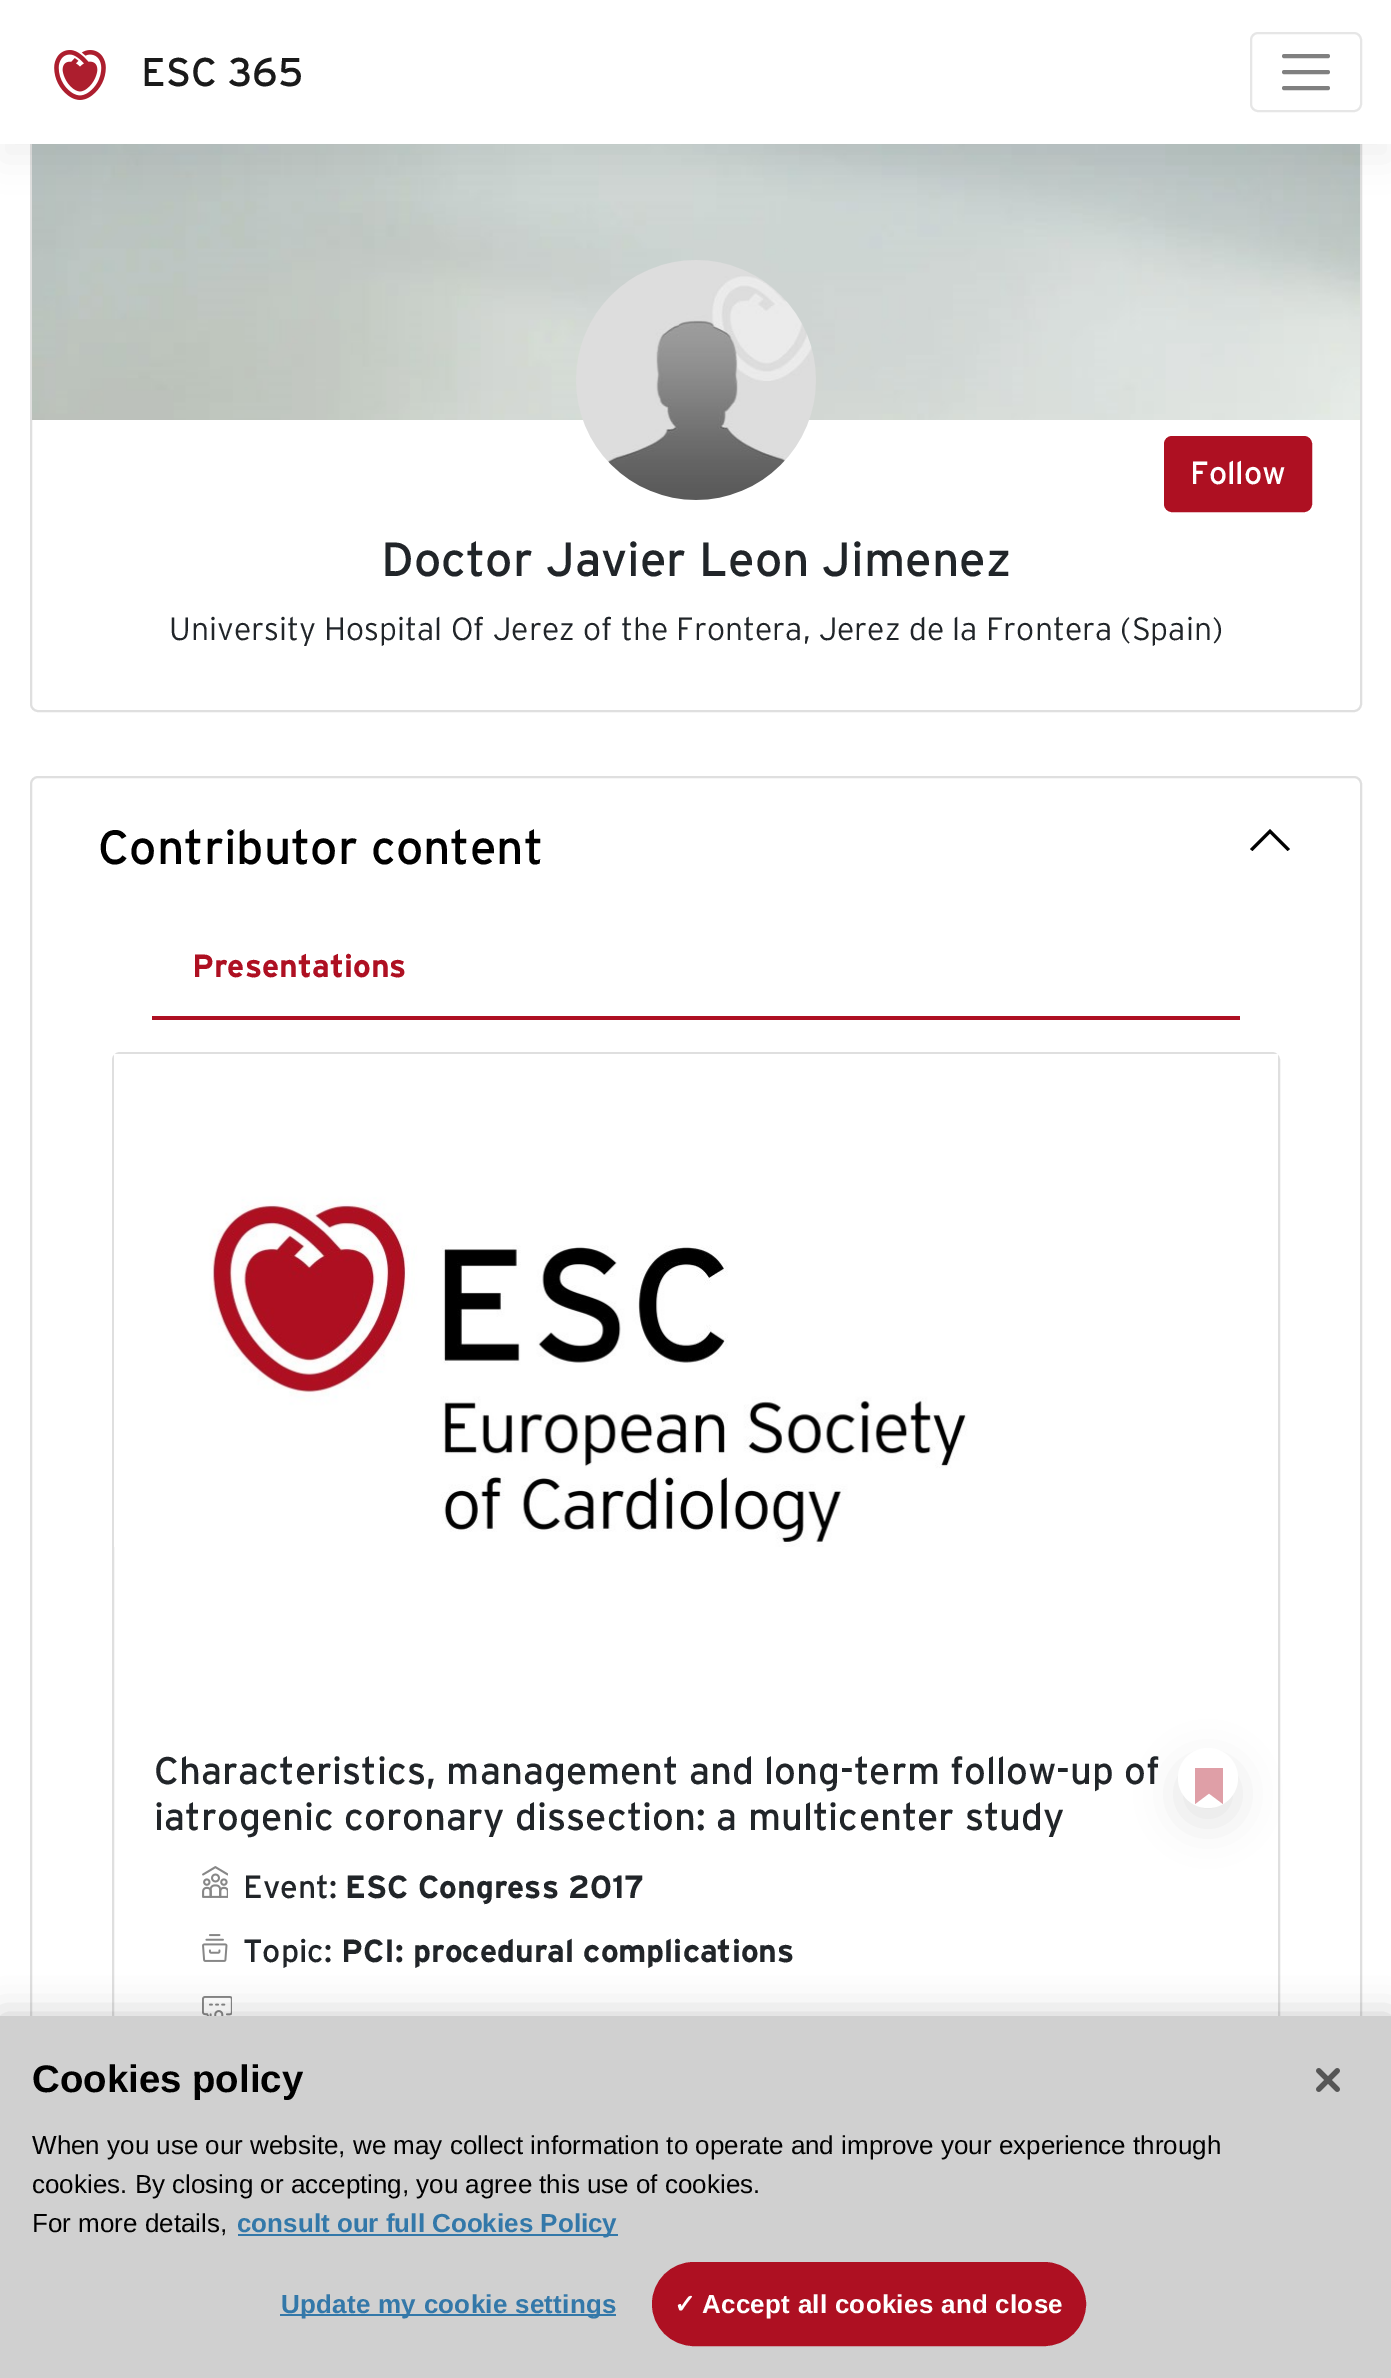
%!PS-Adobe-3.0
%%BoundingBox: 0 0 1391 2378
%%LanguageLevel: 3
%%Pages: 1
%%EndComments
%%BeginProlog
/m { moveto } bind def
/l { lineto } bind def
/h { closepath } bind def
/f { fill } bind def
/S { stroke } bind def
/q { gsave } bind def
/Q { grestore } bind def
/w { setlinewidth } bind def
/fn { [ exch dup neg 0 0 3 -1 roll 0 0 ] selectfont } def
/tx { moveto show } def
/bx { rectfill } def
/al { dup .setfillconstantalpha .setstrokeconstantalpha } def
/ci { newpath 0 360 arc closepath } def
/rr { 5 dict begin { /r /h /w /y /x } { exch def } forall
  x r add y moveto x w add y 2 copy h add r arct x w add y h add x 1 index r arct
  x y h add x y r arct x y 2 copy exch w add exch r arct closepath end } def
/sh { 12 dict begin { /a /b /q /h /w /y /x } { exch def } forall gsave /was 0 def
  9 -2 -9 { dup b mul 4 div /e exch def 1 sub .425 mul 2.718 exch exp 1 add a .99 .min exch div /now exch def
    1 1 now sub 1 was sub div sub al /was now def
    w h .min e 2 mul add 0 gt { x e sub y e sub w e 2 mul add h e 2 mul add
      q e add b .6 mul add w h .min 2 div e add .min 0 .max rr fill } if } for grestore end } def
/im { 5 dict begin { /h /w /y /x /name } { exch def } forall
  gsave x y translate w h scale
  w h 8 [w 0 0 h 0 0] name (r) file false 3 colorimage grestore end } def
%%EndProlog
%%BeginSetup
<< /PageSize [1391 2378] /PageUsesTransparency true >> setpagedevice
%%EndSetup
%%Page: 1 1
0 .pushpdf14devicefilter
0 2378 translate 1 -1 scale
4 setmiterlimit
1 setgray
0 0 1391 2378 bx
0.875 setgray
2 w
31 35 1330 676 7 rr S
(image1.raw) 32 144 1328 276 im
0 setgray
0 16 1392 144 0 20 0.06 sh
1 setgray
0 0 1391 144 bx
(image0.raw) 54 50 52 50 im
/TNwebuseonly-Regular 40 fn
0.102 setgray
(ESC 365) 141 86 tx
0.902 setgray
1251 33 110 78 7 rr S
0.502 setgray
4 w
1 setlinecap
1284 56 m 1328 56 l 1284 72 m 1328 72 l 1284 88 m 1328 88 l S
(image2.raw) 576 260 240 240 im
0.682 0.063 0.133 setrgbcolor
1165 437 146 74 7 rr q f Q
2 w
0 setlinecap
S
/TNwebuseonly-Regular 32 fn
1 setgray
(Follow) 1190 484 tx
/TNwebuseonly-Regular 48 fn
0.129 0.145 0.161 setrgbcolor
(Doctor Javier Leon Jimenez) 381 576 tx
/TNwebuseonly-Light 32 fn
(University Hospital Of Jerez of the Frontera, Jerez de la Frontera \(Spain\)) 169 640 tx
0.875 setgray
31 777 1330 1514 7 rr S
/TNwebuseonly-Regular 48 fn
0 setgray
(Contributor content) 98 864 tx
1287.5 851 m 1290 849 l 1270 829 l 1250 849 l 1252.5 851 l 1270 833.5 l h f
0.682 0.063 0.133 setrgbcolor
152 1016 1088 4 bx
/TNwebuseonly-Bold 32 fn
(Presentations) 192 977 tx
0.875 setgray
113 1053 1166 1124 7 rr S
(image3.raw) 114 1054 1164 493 im
/TNwebuseonly-Regular 38.4 fn
0.129 0.145 0.161 setrgbcolor
(Characteristics, management and long-term follow-up of) 154 1784 tx
(iatrogenic coronary dissection: a multicenter study) 154 1830 tx
0 setgray
1178 1764 60 60 30 20 0.1 sh
1 setgray
1208 1778 30 ci f
0.875 0.624 0.655 setrgbcolor
1195 1768 m 1195 1804 l 1209 1793.5 l 1223 1804 l 1223 1768 l h f
(image4.raw) 202 1866 26 32 im
/TNwebuseonly-Regular 32 fn
0.129 0.145 0.161 setrgbcolor
(Event:) 243 1898 tx
/TNwebuseonly-Bold 32 fn
(ESC Congress 2017) 345 1898 tx
(image5.raw) 202 1934 26 28 im
/TNwebuseonly-Regular 32 fn
(Topic:) 243 1962 tx
/TNwebuseonly-Bold 32 fn
(PCI: procedural complications) 341 1962 tx
(image6.raw) 202 1996 30 20 im
0 setgray
0 2016 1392 362 0 18 0.2 sh
0.816 setgray
0 2016 1391 362 bx
/LiberationSans-Bold 38.4 fn
0 setgray
(Cookies policy) 32 2092 tx
/LiberationSans-Regular 26 fn
(When you use our website, we may collect information to operate and improve your experience through) 32 2154 tx
(cookies. By closing or accepting, you agree this use of cookies.) 32 2193 tx
(For more details,) 32 2232 tx
0.2 0.471 0.663 setrgbcolor
238 2234 380 2 bx
/LiberationSans-Bold 26 fn
(consult our full Cookies Policy) 237 2232 tx
280 2314 336 2 bx
281 2313 m 0.25 0 (Update my cookie settings) ashow
0.682 0.063 0.133 setrgbcolor
653 2263 432 82 41 rr q f Q
S
/DejaVuSans-Bold 26 fn
1 setgray
674 2313 m 0.25 0 (✓) ashow
/LiberationSans-Bold 26 fn
702 2313 m 0.25 0 (Accept all cookies and close) ashow
(image7.raw) 1316 2068 24 24 im
.poppdf14devicefilter showpage
%%EOF
